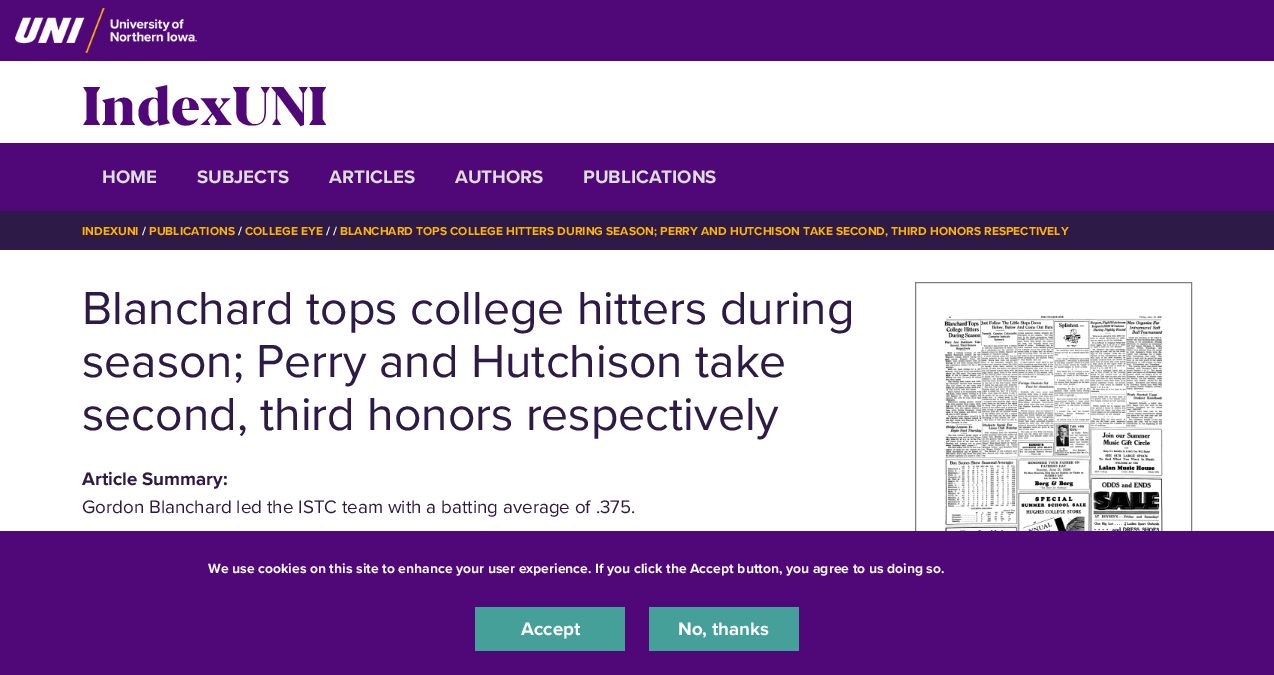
%!PS-Adobe-3.0
%%BoundingBox: 0 0 1274 675
%%LanguageLevel: 3
%%Pages: 1
%%EndComments
%%BeginProlog
/m { moveto } bind def
/fn { [ exch dup neg 0 0 3 -1 roll 0 0 ] selectfont } def
/tx { moveto show } def
/bx { rectfill } def
/im { 5 dict begin { /h /w /y /x /name } { exch def } forall
  gsave x y translate w h scale
  w h 8 [w 0 0 h 0 0] name (r) file false 3 colorimage grestore end } def
%%EndProlog
%%BeginSetup
<< /PageSize [1274 675] >> setpagedevice
%%EndSetup
%%Page: 1 1
0 675 translate 1 -1 scale
4 setmiterlimit
1 setgray
0 0 1274 675 bx
0.314 0.027 0.471 setrgbcolor
0 0 1274 61 bx
(image0.raw) 15 8 182 45 im
/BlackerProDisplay-Black 54 fn
(IndexUNI) 82 125 tx
0 143 1274 68 bx
/ProximaNova-Bold 18.75 fn
0.867 setgray
(HOME) 102 183 tx
(SUBJECTS) 197 183 tx
(ARTICLES) 329 183 tx
(AUTHORS) 455 183 tx
(PUBLICATIONS) 583 183 tx
0.18 0.102 0.278 setrgbcolor
0 211 1274 39 bx
/ProximaNova-Bold 12 fn
1 0.71 0 setrgbcolor
82 235 m 0.03 0 (INDEXUNI) ashow
1 setgray
142 235 m 0.03 0 (/) ashow
1 0.71 0 setrgbcolor
149 235 m 0.03 0 (PUBLICATIONS) ashow
1 setgray
238 235 m 0.03 0 (/) ashow
1 0.71 0 setrgbcolor
245 235 m 0.03 0 (COLLEGE EYE) ashow
1 setgray
326 235 m 0.03 0 (/ /) ashow
1 0.71 0 setrgbcolor
340 235 m 0.03 0 (BLANCHARD TOPS COLLEGE HITTERS DURING SEASON; PERRY AND HUTCHISON TAKE SECOND, THIRD HONORS RESPECTIVELY) ashow
/ProximaNova-Regular 48 fn
0.18 0.102 0.278 setrgbcolor
(Blanchard tops college hitters during) 82 324 tx
(season; Perry and Hutchison take) 82 377 tx
(second, third honors respectively) 82 430 tx
0.502 setgray
915.5 282.5 276 390 rectstroke
(image1.raw) 941 313 222 218 im
/ProximaNova-Bold 18.75 fn
0.18 0.102 0.278 setrgbcolor
(Article Summary:) 82 485 tx
/ProximaNova-Regular 18.75 fn
(Gordon Blanchard led the ISTC team with a batting average of .375.) 82 513 tx
0.314 0.027 0.471 setrgbcolor
0 531 1274 144 bx
/ProximaNova-Bold 13.92 fn
1 setgray
(We use cookies on this site to enhance your user experience. If you click the Accept button, you agree to us doing so.) 208 573 tx
0.275 0.627 0.604 setrgbcolor
475 607 150 44 bx
/ProximaNova-Bold 18.75 fn
1 setgray
(Accept) 521 635 tx
0.275 0.627 0.604 setrgbcolor
649 607 150 44 bx
1 setgray
(No, thanks) 678 635 tx
showpage
%%EOF
